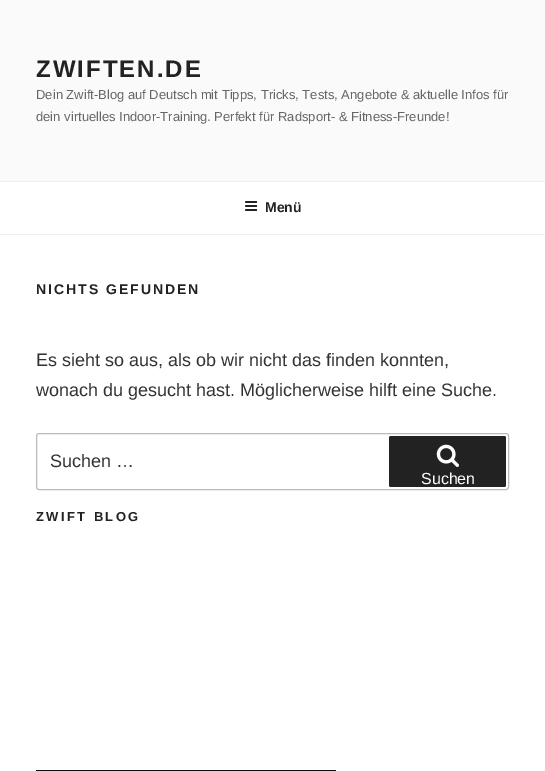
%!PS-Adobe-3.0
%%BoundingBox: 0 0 545 771
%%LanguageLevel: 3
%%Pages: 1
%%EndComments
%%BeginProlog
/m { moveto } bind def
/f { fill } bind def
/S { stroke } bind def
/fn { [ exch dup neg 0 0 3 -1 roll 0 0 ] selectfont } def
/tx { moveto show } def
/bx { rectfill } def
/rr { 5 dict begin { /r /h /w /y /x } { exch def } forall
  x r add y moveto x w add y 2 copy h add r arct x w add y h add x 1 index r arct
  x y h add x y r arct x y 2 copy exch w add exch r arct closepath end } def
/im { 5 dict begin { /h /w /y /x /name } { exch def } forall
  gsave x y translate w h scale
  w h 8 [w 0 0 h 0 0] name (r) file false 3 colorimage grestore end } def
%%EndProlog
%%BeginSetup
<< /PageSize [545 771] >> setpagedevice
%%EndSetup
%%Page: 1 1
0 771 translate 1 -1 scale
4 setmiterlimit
1 setgray
0 0 545 771 bx
0.98 setgray
0 0 545 181 bx
/LiberationSans-Bold 24 fn
0.133 setgray
36 77 m 2 0 (ZWIFTEN.DE) ashow
/LiberationSans-Regular 13 fn
0.4 setgray
(Dein Zwift-Blog auf Deutsch mit Tipps, Tricks, Tests, Angebote & aktuelle Infos für) 36 99 tx
(dein virtuelles Indoor-Training. Perfekt für Radsport- & Fitness-Freunde!) 36 121 tx
0.933 setgray
0 181 545 1 bx
0 234 545 1 bx
(image0.raw) 245 201 13 10 im
/LiberationSans-Bold 14 fn
0.133 setgray
(Menü) 265 212 tx
36 294 m 2 0 (NICHTS GEFUNDEN) ashow
/LiberationSans-Regular 18 fn
0.2 setgray
(Es sieht so aus, als ob wir nicht das finden konnten,) 36 366 tx
(wonach du gesucht hast. Möglicherweise hilft eine Suche.) 36 396 tx
0.733 setgray
36.5 433.5 472 56 2.5 rr S
0.2 setgray
(Suchen …) 50 467 tx
0.133 setgray
389 436 117 51 2 rr f
(image1.raw) 436 444 23 23 im
/LiberationSans-Regular 16 fn
1 setgray
(Suchen) 421 484 tx
/LiberationSans-Bold 13 fn
0.133 setgray
36 521 m 2.4 0 (ZWIFT BLOG) ashow
0.059 setgray
36 770 300 1 bx
showpage
%%EOF
